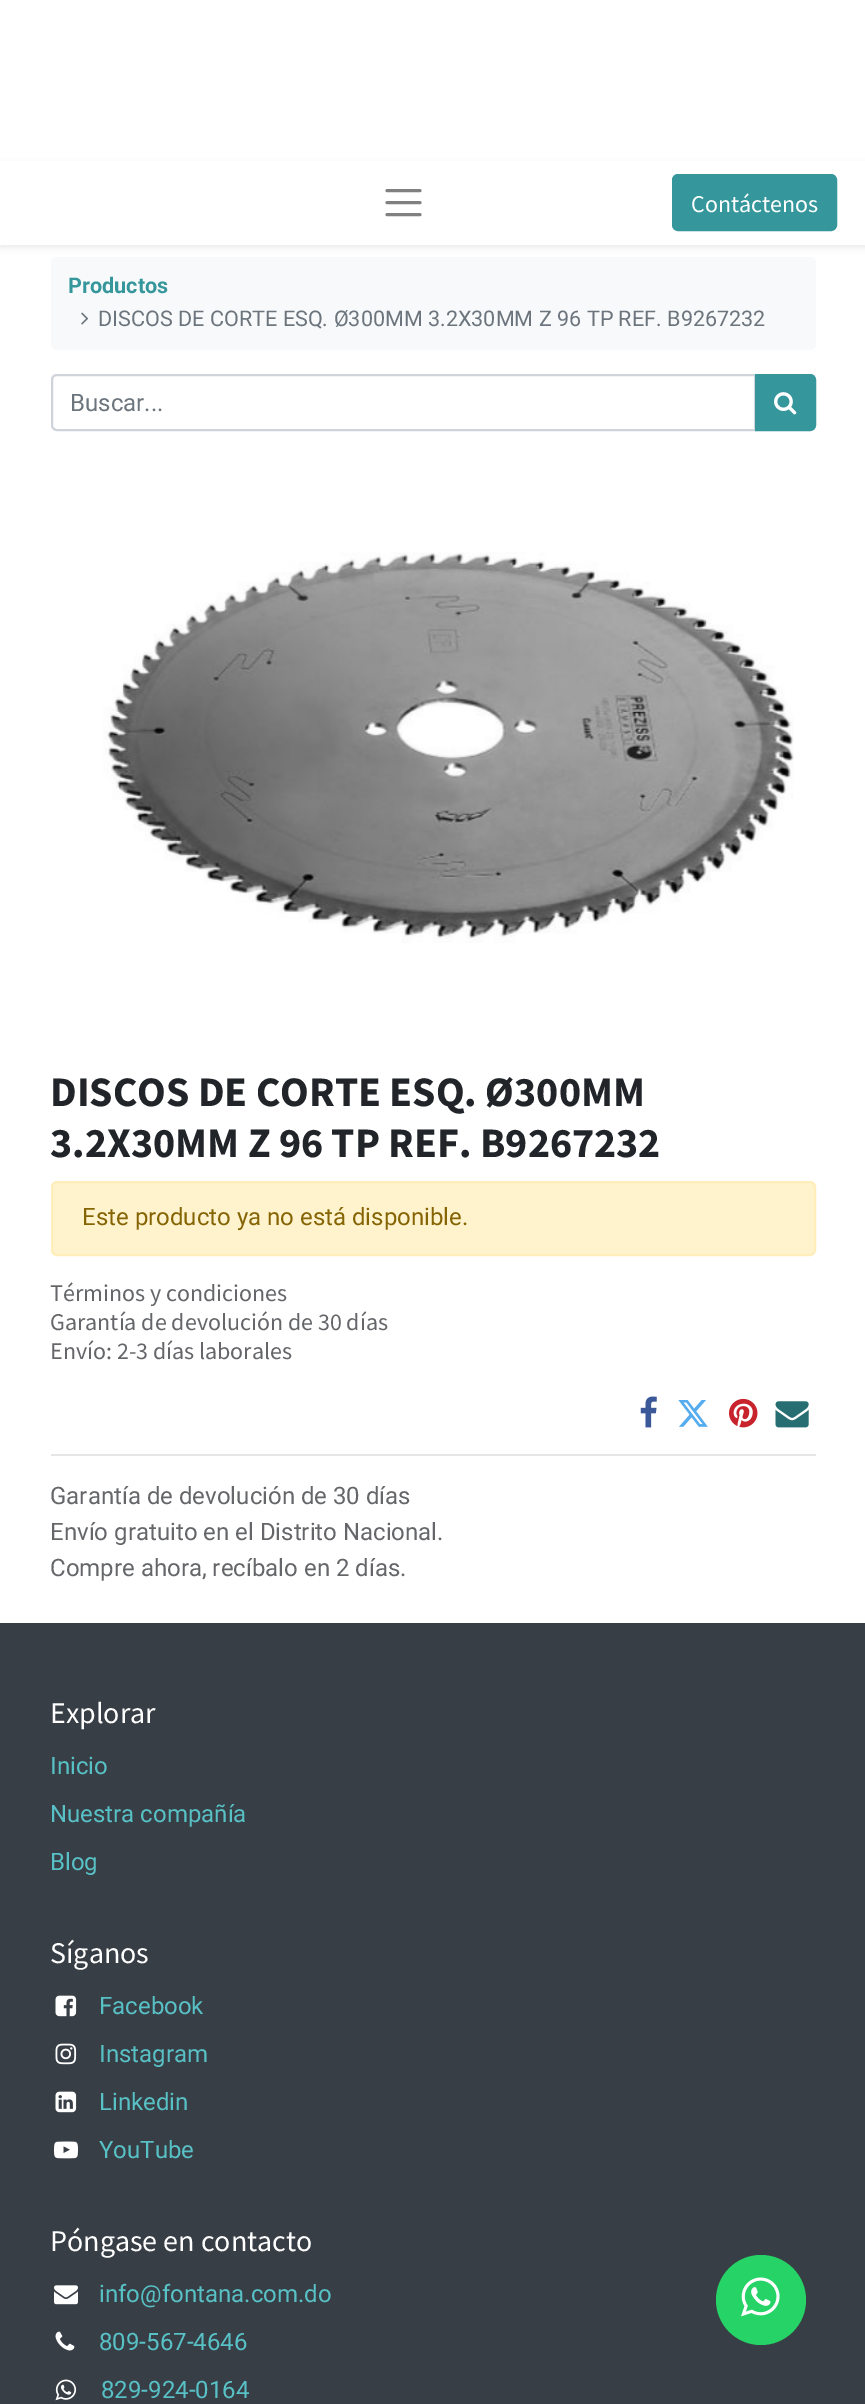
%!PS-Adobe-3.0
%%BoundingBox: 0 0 865 2404
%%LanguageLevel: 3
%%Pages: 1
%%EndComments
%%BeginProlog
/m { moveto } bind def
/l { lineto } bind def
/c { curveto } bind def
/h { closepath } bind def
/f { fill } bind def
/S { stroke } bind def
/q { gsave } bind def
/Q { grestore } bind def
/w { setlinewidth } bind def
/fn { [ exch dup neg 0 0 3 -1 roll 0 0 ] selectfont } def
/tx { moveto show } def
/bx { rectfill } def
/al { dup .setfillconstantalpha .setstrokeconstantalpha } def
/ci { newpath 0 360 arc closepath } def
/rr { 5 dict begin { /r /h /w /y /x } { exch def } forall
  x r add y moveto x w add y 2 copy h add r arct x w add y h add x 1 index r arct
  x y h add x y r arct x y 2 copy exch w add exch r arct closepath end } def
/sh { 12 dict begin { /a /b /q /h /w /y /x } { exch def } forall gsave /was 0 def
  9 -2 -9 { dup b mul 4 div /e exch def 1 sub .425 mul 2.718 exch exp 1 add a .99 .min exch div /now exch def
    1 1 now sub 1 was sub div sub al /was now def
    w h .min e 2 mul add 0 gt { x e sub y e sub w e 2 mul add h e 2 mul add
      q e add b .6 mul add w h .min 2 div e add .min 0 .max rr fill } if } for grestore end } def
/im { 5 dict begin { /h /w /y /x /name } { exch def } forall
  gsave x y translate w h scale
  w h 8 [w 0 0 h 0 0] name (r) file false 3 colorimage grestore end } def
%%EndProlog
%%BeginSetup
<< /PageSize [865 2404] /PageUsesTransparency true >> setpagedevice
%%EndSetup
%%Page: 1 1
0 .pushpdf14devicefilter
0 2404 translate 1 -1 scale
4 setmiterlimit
1 setgray
0 0 865 2404 bx
0.973 0.976 0.98 setrgbcolor
51 257 765 93 6 rr f
0 setgray
0 164 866 84 0 3 0.07 sh
1 setgray
0 161 865 84 bx
0.984 0.98 0.984 setrgbcolor
46 194 2 1 bx
0.502 setgray
3 w
1 setlinecap
387 190.5 m 420 190.5 l 387 202.5 m 420 202.5 l 387 214.5 m 420 214.5 l S
0.208 0.592 0.612 setrgbcolor
673 175 163 55 5 rr q f Q
2 w
0 setlinecap
S
/SourceSansPro-Regular 24 fn
1 setgray
(Contáctenos) 691 212 tx
/Roboto-Bold 21.6 fn
0.208 0.592 0.612 setrgbcolor
(Productos) 68 293 tx
(image0.raw) 81 312 8 13 im
/Roboto-Regular 21.6 fn
0.424 0.459 0.49 setrgbcolor
(DISCOS DE CORTE ESQ. Ø300MM 3.2X30MM Z 96 TP REF. B9267232) 98 326 tx
0.808 0.831 0.855 setrgbcolor
57 375 m 755 375 l 755 430 l 57 430 l 54 430 52 428 52 425 c 52 380 l 52 377 54 375 57 375 c h S
/Roboto-Regular 24 fn
0.424 0.459 0.49 setrgbcolor
(Buscar...) 70 411 tx
0.208 0.592 0.612 setrgbcolor
756 375 m 810 375 l 813 375 815 377 815 380 c 815 425 l 815 428 813 430 810 430 c 756 430 l h q f Q
S
(image1.raw) 774 392 23 23 im
(image2.raw) 103 552 691 391 im
/SourceSansPro-Bold 42 fn
0.129 0.145 0.161 setrgbcolor
(DISCOS DE CORTE ESQ. Ø300MM) 50 1106 tx
(3.2X30MM Z 96 TP REF. B9267232) 50 1157 tx
1 0.953 0.804 setrgbcolor
52 1182 763 73 5 rr q f Q
1 0.933 0.729 setrgbcolor
S
/Roboto-Regular 24 fn
0.522 0.392 0.016 setrgbcolor
(Este producto ya no está disponible.) 82 1225 tx
/SourceSansPro-Regular 24 fn
0.392 0.4 0.412 setrgbcolor
(Términos y condiciones) 50 1301 tx
(Garantía de devolución de 30 días) 50 1330 tx
(Envío: 2-3 días laborales) 50 1359 tx
(image3.raw) 640 1396 17 32 im
(image4.raw) 678 1400 30 27 im
(image5.raw) 729 1398 29 30 im
(image6.raw) 775 1401 34 27 im
0.902 setgray
51 1454 765 2 bx
/Roboto-Regular 24 fn
0.392 0.4 0.412 setrgbcolor
(Garantía de devolución de 30 días) 50 1504 tx
(Envío gratuito en el Distrito Nacional.) 50 1540 tx
(Compre ahora, recíbalo en 2 días.) 50 1576 tx
0.22 0.243 0.271 setrgbcolor
0 1623 865 781 bx
/SourceSansPro-Regular 30 fn
1 setgray
(Explorar) 50 1723 tx
/Roboto-Regular 24 fn
0.341 0.757 0.776 setrgbcolor
(Inicio) 50 1774 tx
(Nuestra compañía) 50 1822 tx
(Blog) 50 1870 tx
/SourceSansPro-Regular 30 fn
1 setgray
(Síganos) 50 1963 tx
(image7.raw) 55 1995 22 22 im
/Roboto-Regular 24 fn
0.341 0.757 0.776 setrgbcolor
(Facebook) 99 2014 tx
(image8.raw) 55 2043 22 22 im
(Instagram) 99 2062 tx
(image9.raw) 55 2091 22 22 im
(Linkedin) 99 2110 tx
(image10.raw) 54 2141 24 18 im
(YouTube) 99 2158 tx
/SourceSansPro-Regular 30 fn
1 setgray
(Póngase en contacto) 50 2251 tx
(image11.raw) 54 2285 24 20 im
/Roboto-Regular 24 fn
0.341 0.757 0.776 setrgbcolor
(info@fontana.com.do) 99 2302 tx
(image12.raw) 55 2331 20 20 im
(809-567-4646) 99 2350 tx
(image13.raw) 55 2379 22 22 im
(829-924-0164) 101 2398 tx
0.145 0.827 0.4 setrgbcolor
761 2300 45 ci f
(image14.raw) 741 2277 39 40 im
.poppdf14devicefilter showpage
%%EOF
